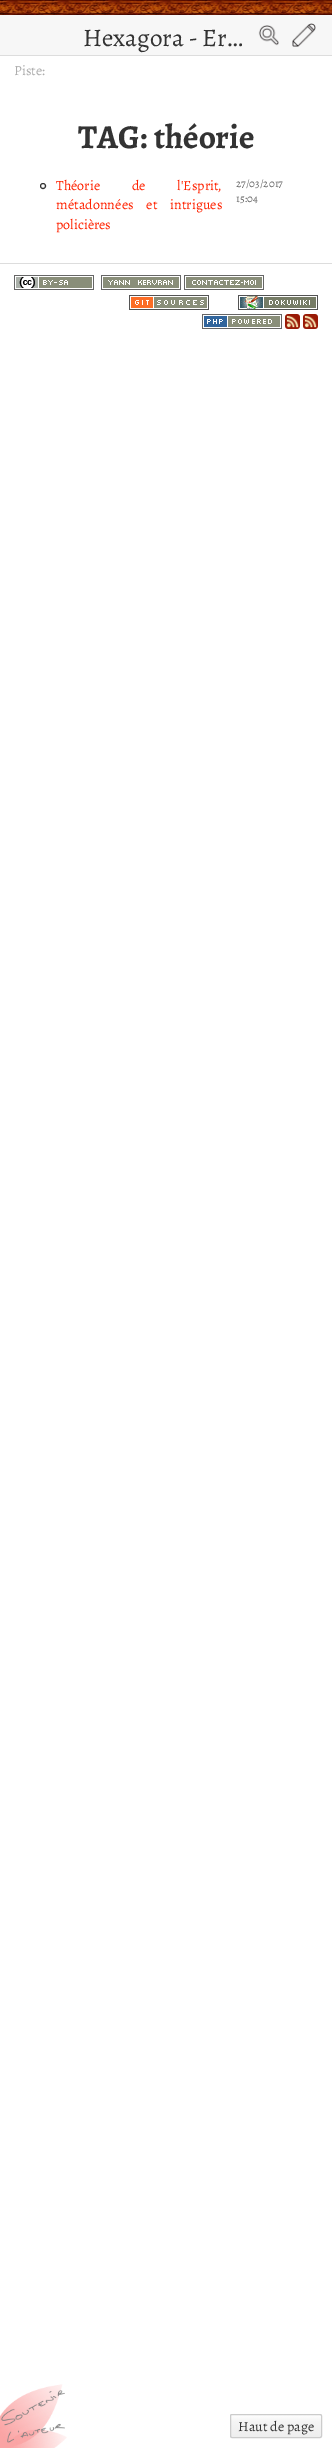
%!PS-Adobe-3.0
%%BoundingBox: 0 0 332 2448
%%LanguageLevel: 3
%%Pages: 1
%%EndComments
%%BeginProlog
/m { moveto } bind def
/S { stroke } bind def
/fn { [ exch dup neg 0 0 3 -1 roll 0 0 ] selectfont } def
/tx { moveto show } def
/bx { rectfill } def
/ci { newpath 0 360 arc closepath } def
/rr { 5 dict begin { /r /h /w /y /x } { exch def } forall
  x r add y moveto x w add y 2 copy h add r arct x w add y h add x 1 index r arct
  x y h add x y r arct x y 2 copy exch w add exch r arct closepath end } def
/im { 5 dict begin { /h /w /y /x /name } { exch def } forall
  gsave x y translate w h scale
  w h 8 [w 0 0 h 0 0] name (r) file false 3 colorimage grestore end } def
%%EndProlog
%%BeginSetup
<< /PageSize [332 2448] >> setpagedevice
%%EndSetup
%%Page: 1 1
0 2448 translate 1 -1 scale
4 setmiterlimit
1 setgray
0 0 332 2448 bx
0.969 setgray
0 15 332 40 bx
(image0.raw) 0 0 332 15 im
0.867 setgray
0 55 332 1 bx
/Alegreya-Regular 25.25 fn
0.2 setgray
(Hexagora - Er…) 83 46 tx
(image1.raw) 258 25 21 21 im
(image2.raw) 292 23 24 24 im
/Alegreya-Regular 14 fn
0.678 setgray
(Piste:) 14 75 tx
/Alegreya-Bold 33.5 fn
0.2 setgray
(TAG: théorie) 78 148 tx
43 186 2.5 ci S
/Alegreya-Regular 14 fn
1 0.133 0 setrgbcolor
56 190 m 29 0 32 (Théorie de l'Esprit,) widthshow
56 209 m 10 0 32 (métadonnées et intrigues) widthshow
(policières) 56 229 tx
/Alegreya-Regular 11 fn
0.4 setgray
(27/03/2017) 236 187 tx
(15:04) 236 202 tx
0.867 setgray
0 263 332 1 bx
(image3.raw) 14 275 80 15 im
(image4.raw) 101 275 80 15 im
(image5.raw) 184 275 80 15 im
(image6.raw) 129 295 80 15 im
(image7.raw) 238 295 80 15 im
(image8.raw) 202 314 80 15 im
(image9.raw) 285 314 15 15 im
(image9.raw) 303 314 15 15 im
(image10.raw) 0 2384 67 64 im
(image11.raw) 230 2414 92 24 im
0.8 setgray
230.5 2414.5 91 23 1.5 rr S
/Alegreya-Regular 14 fn
0.2 setgray
(Haut de page) 238 2431 tx
showpage
%%EOF
